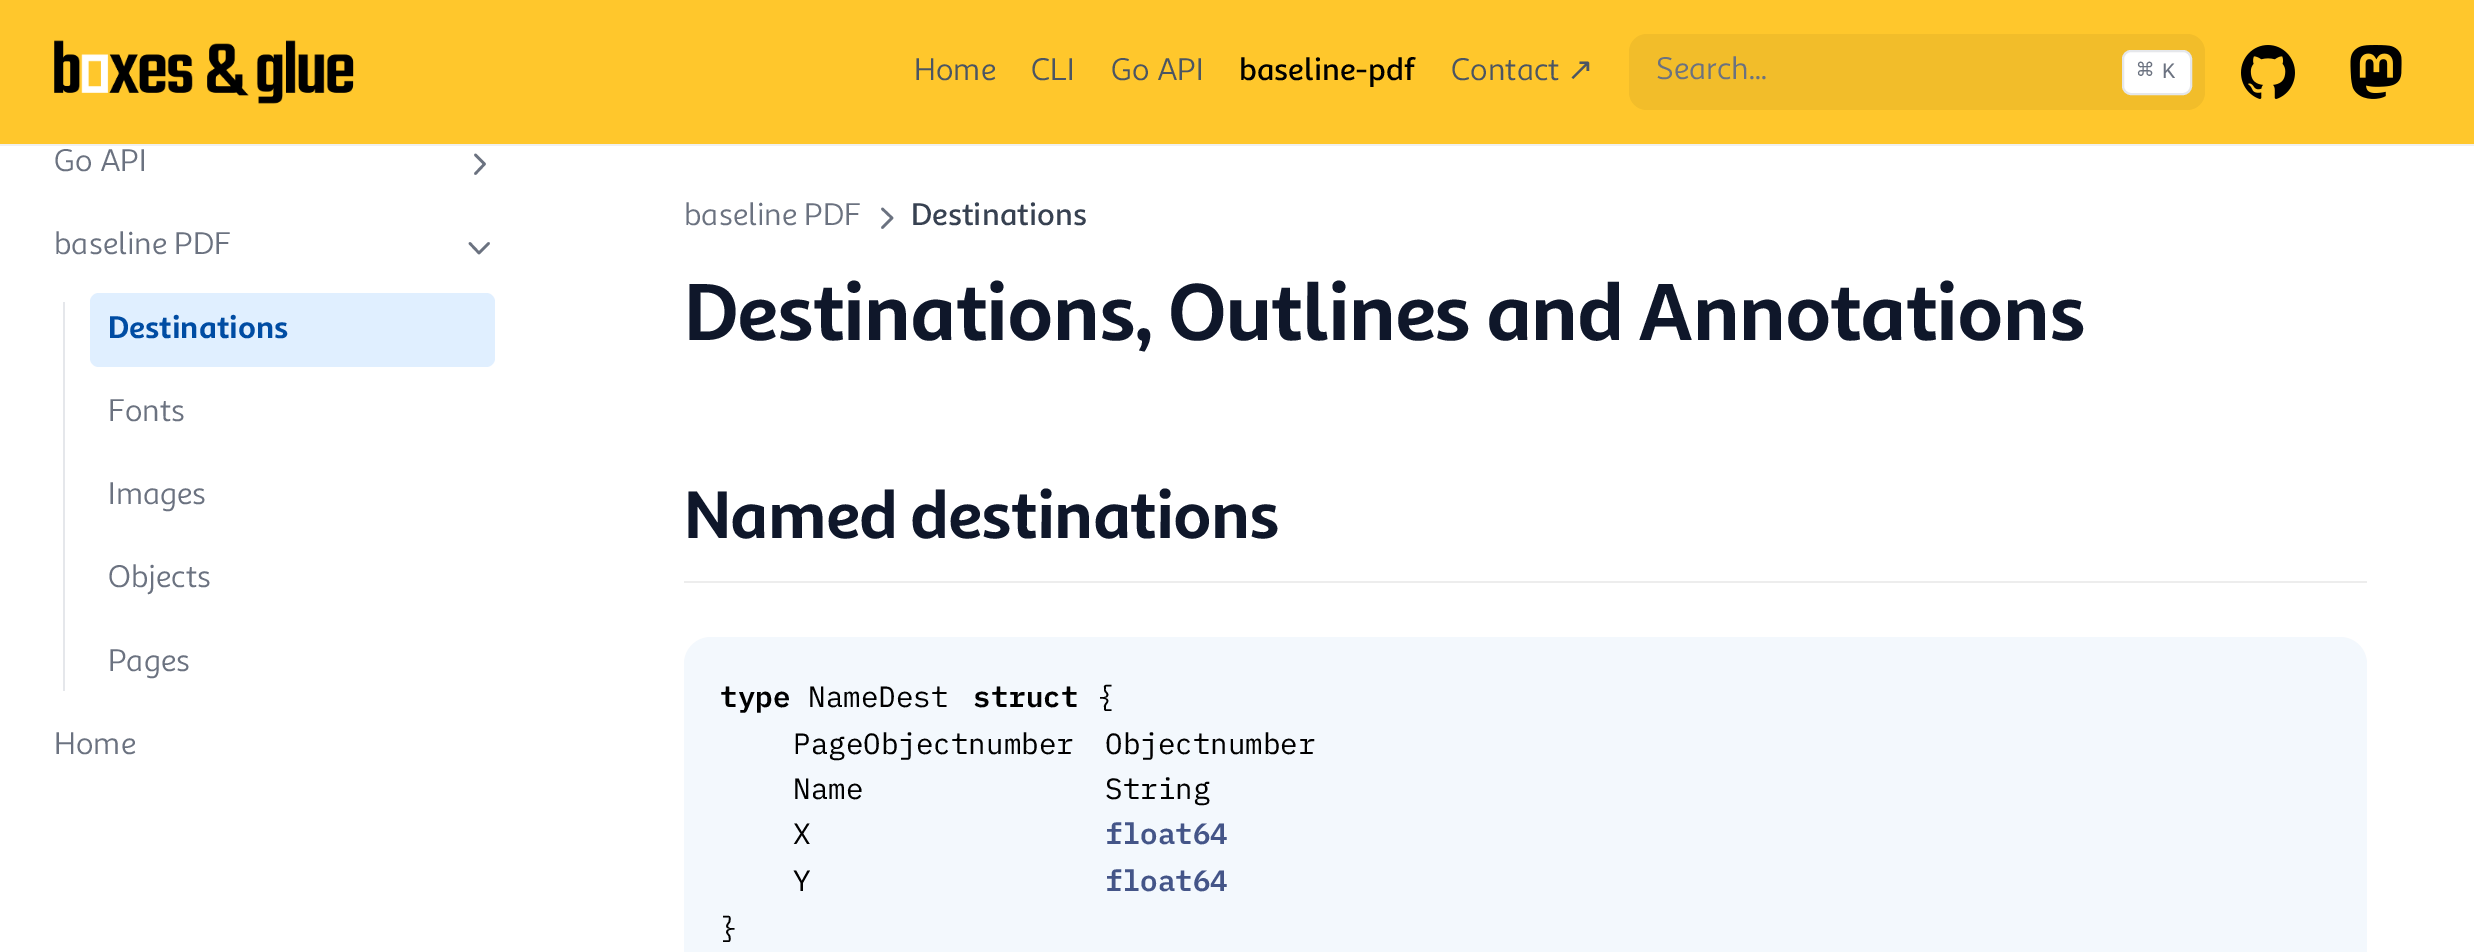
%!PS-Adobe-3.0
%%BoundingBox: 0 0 2474 952
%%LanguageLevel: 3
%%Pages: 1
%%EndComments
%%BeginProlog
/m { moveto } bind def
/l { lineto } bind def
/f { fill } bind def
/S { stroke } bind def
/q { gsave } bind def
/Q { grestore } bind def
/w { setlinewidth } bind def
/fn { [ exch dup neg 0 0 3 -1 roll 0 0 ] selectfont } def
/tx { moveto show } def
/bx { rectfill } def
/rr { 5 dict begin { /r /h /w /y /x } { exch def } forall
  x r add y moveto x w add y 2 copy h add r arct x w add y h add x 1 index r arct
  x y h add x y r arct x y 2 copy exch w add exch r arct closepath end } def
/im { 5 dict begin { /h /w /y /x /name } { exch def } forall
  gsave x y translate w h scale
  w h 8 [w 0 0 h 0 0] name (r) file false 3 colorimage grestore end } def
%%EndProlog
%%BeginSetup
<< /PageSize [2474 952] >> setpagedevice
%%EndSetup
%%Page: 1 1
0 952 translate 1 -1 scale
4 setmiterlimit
1 setgray
0 0 2474 952 bx
1 0.78 0.173 setrgbcolor
0 0 2474 144 bx
(image0.raw) 54 40 300 64 im
/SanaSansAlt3-Regular 31.5 fn
0.294 0.333 0.388 setrgbcolor
(Home) 914 80 tx
(CLI) 1031 80 tx
(Go API) 1111 80 tx
/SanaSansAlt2-Regular 31.5 fn
0 setgray
(baseline-pdf) 1239 80 tx
/SanaSansAlt3-Regular 31.5 fn
0.294 0.333 0.388 setrgbcolor
(Contact) 1451 80 tx
/DejaVuSans-Regular 31.5 fn
(↗) 1567 80 tx
0.949 0.741 0.165 setrgbcolor
1629 34 576 76 18 rr f
/SanaSansAlt3-Regular 31.5 fn
0.42 0.447 0.502 setrgbcolor
(Search...) 1656 79 tx
1 setgray
2123 51 68 43 8 rr q f Q
0.898 0.906 0.922 setrgbcolor
2 w
S
/DejaVuSansMono-Regular 27 fn
0.42 0.447 0.502 setrgbcolor
(⌘) 2137 79 tx
/LiberationMono-Regular 22 fn
(K) 2162 78 tx
(image1.raw) 2241 45 54 54 im
(image2.raw) 2350 45 52 54 im
0.941 setgray
0 144 2474 2 bx
/SanaSansAlt3-Regular 31.5 fn
0.42 0.447 0.502 setrgbcolor
(Go API) 54 171 tx
2.6 w
1 setlinecap
1 setlinejoin
475.5 155 m 484.5 164 l 475.5 173.5 l S
(baseline PDF) 54 254 tx
488.5 243.5 m 479 253 l 470 243.5 l S
0.898 0.906 0.922 setrgbcolor
63 302 2 389 bx
0.878 0.937 1 setrgbcolor
90 293 405 74 9 rr f
/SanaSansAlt-Regular 31.5 fn
0 0.298 0.639 setrgbcolor
(Destinations) 108 338 tx
/SanaSansAlt3-Regular 31.5 fn
0.42 0.447 0.502 setrgbcolor
(Fonts) 108 421 tx
(Images) 108 504 tx
(Objects) 108 587 tx
(Pages) 108 671 tx
(Home) 54 754 tx
(baseline PDF) 684 225 tx
882.5 209 m 892 218 l 882.5 227.5 l S
/SanaSansAlt2-Regular 31.5 fn
0.216 0.255 0.318 setrgbcolor
(Destinations) 911 225 tx
/SanaSansAlt-Regular 81 fn
0.059 0.09 0.165 setrgbcolor
684 340 m -1.2 0 (Destinations, Outlines and Annotations) ashow
0.929 setgray
684 581 1683 2 bx
/SanaSansAlt-Regular 67.5 fn
0.059 0.09 0.165 setrgbcolor
684 538 m -1 0 (Named destinations) ashow
0.953 0.973 0.992 setrgbcolor
684 637 1683 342 27 rr f
/IBMPlexMono-SemiBold 29.25 fn
0 setgray
(type) 720 707 tx
/IBMPlexMono-Regular 29.25 fn
(NameDest) 808 707 tx
/IBMPlexMono-SemiBold 29.25 fn
(struct) 973 707 tx
/IBMPlexMono-Regular 29.25 fn
({) 1097 707 tx
(PageObjectnumber) 793 754 tx
(Objectnumber) 1105 754 tx
(Name) 793 799 tx
(String) 1105 799 tx
(X) 793 844 tx
/IBMPlexMono-SemiBold 29.25 fn
0.267 0.333 0.533 setrgbcolor
(float64) 1105 844 tx
/IBMPlexMono-Regular 29.25 fn
0 setgray
(Y) 793 891 tx
/IBMPlexMono-SemiBold 29.25 fn
0.267 0.333 0.533 setrgbcolor
(float64) 1105 891 tx
/IBMPlexMono-Regular 29.25 fn
0 setgray
(}) 720 938 tx
showpage
%%EOF
